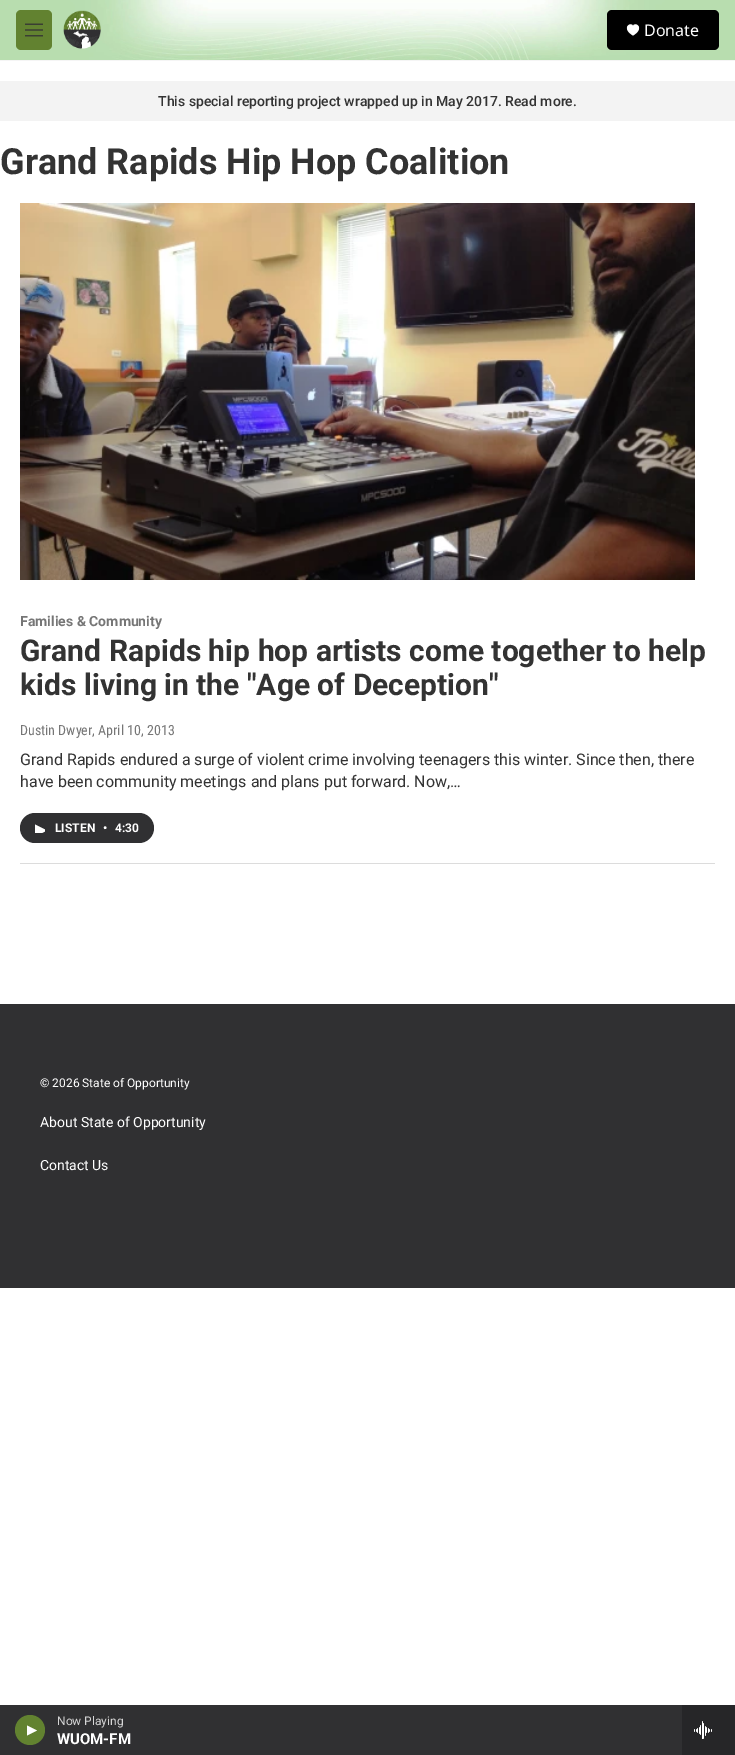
%!PS-Adobe-3.0
%%BoundingBox: 0 0 735 1755
%%LanguageLevel: 3
%%Pages: 1
%%EndComments
%%BeginProlog
/m { moveto } bind def
/l { lineto } bind def
/c { curveto } bind def
/h { closepath } bind def
/f { fill } bind def
/q { gsave } bind def
/Q { grestore } bind def
/fn { [ exch dup neg 0 0 3 -1 roll 0 0 ] selectfont } def
/tx { moveto show } def
/bx { rectfill } def
/ci { newpath 0 360 arc closepath } def
/rr { 5 dict begin { /r /h /w /y /x } { exch def } forall
  x r add y moveto x w add y 2 copy h add r arct x w add y h add x 1 index r arct
  x y h add x y r arct x y 2 copy exch w add exch r arct closepath end } def
/im { 5 dict begin { /h /w /y /x /name } { exch def } forall
  gsave x y translate w h scale
  w h 8 [w 0 0 h 0 0] name (r) file false 3 colorimage grestore end } def
%%EndProlog
%%BeginSetup
<< /PageSize [735 1755] >> setpagedevice
%%EndSetup
%%Page: 1 1
0 1755 translate 1 -1 scale
4 setmiterlimit
1 setgray
0 0 735 1755 bx
0.961 setgray
0 60 735 1 bx
(image0.raw) 0 0 735 60 im
0.384 0.51 0.188 setrgbcolor
16 10 36 40 5 rr f
(image1.raw) 25 23 18 14 im
(image2.raw) 63 10 38 39 im
0 setgray
607 10 112 40 5 rr f
1 setgray
633 26 m 631 21 620.5 28 633 35.5 c 645.5 28 635 21 633 26 c h f
/NotoSans-Regular 16 fn
(Donate) 644 36 tx
0.188 0.188 0.196 setrgbcolor
0 1705 682 50 bx
0.384 0.51 0.188 setrgbcolor
30 1730 15 ci f
1 setgray
27 1725.5 m 37 1730.5 l 27 1735.5 l h f
/Roboto-Regular 12 fn
0.839 setgray
(Now Playing) 57 1725 tx
/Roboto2-Bold 15 fn
1 setgray
(WUOM-FM) 57 1744 tx
0.149 0.149 0.157 setrgbcolor
682 1705 53 50 bx
(image3.raw) 694 1721 18 18 im
0.953 setgray
0 81 735 40 bx
/Roboto-Medium 14 fn
0.2 setgray
(This special reporting project wrapped up in May 2017. Read more.) 158 106 tx
/Roboto-Bold 36 fn
(Grand Rapids Hip Hop Coalition) 0 174 tx
0.863 setgray
20 863 695 1 bx
(image4.raw) 20 203 675 377 im
/Roboto-Bold 14 fn
0.463 setgray
(Families & Community) 20 626 tx
/Roboto-Bold 30 fn
0.2 setgray
(Grand Rapids hip hop artists come together to help) 20 661 tx
(kids living in the "Age of Deception") 20 695 tx
/RobotoCondensed-Regular 14 fn
0.463 setgray
(Dustin Dwyer, April 10, 2013) 20 735 tx
/Roboto-Regular 16 fn
0.2 setgray
(Grand Rapids endured a surge of violent crime involving teenagers this winter. Since then, there) 20 765 tx
(have been community meetings and plans put forward. Now,…) 20 787 tx
0.188 0.188 0.196 setrgbcolor
20 813 134 30 15 rr f
q
35 823 10 10 rectclip
1 setgray
35 824.5 m 47 830.5 l 35 836.5 l h f
Q
/Roboto2-Bold 12 fn
1 setgray
(LISTEN) 55 832 tx
(•) 103 832 tx
(4:30) 115 832 tx
0.188 0.188 0.196 setrgbcolor
0 1004 735 284 bx
/Roboto-Regular 12 fn
1 setgray
(© 2026 State of Opportunity) 40 1087 tx
/Roboto-Regular 14 fn
(About State of Opportunity) 40 1127 tx
(Contact Us) 40 1170 tx
showpage
%%EOF
